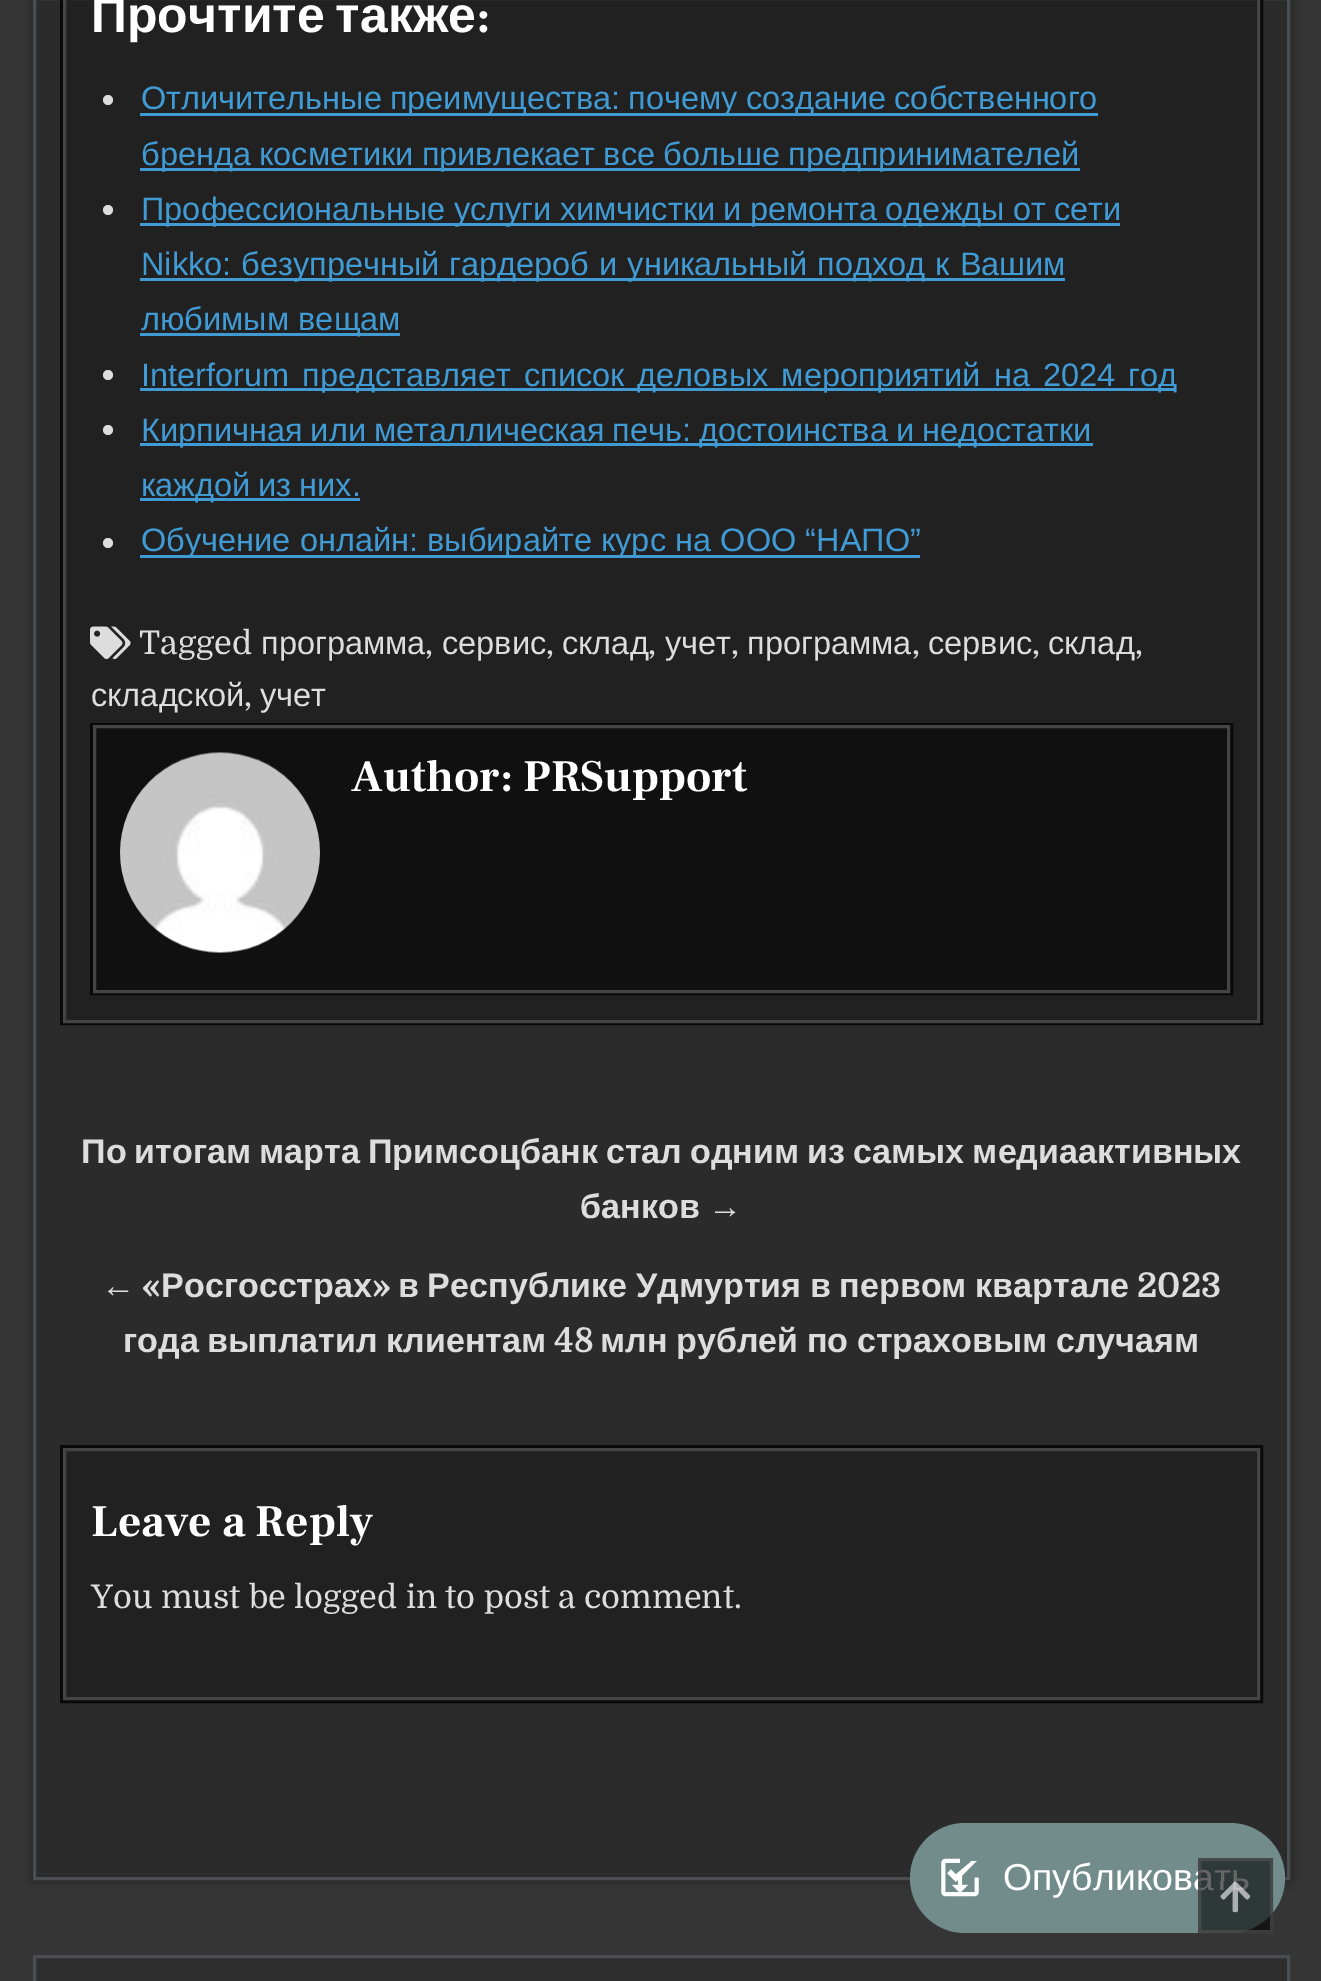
%!PS-Adobe-3.0
%%BoundingBox: 0 0 1321 1981
%%LanguageLevel: 3
%%Pages: 1
%%EndComments
%%BeginProlog
/m { moveto } bind def
/l { lineto } bind def
/h { closepath } bind def
/f { fill } bind def
/S { stroke } bind def
/q { gsave } bind def
/Q { grestore } bind def
/w { setlinewidth } bind def
/fn { [ exch dup neg 0 0 3 -1 roll 0 0 ] selectfont } def
/tx { moveto show } def
/bx { rectfill } def
/al { dup .setfillconstantalpha .setstrokeconstantalpha } def
/ci { newpath 0 360 arc closepath } def
/rr { 5 dict begin { /r /h /w /y /x } { exch def } forall
  x r add y moveto x w add y 2 copy h add r arct x w add y h add x 1 index r arct
  x y h add x y r arct x y 2 copy exch w add exch r arct closepath end } def
/sh { 12 dict begin { /a /b /q /h /w /y /x } { exch def } forall gsave /was 0 def
  9 -2 -9 { dup b mul 4 div /e exch def 1 sub .425 mul 2.718 exch exp 1 add a .99 .min exch div /now exch def
    1 1 now sub 1 was sub div sub al /was now def
    w h .min e 2 mul add 0 gt { x e sub y e sub w e 2 mul add h e 2 mul add
      q e add b .6 mul add w h .min 2 div e add .min 0 .max rr fill } if } for grestore end } def
/im { 5 dict begin { /h /w /y /x /name } { exch def } forall
  gsave x y translate w h scale
  w h 8 [w 0 0 h 0 0] name (r) file false 3 colorimage grestore end } def
%%EndProlog
%%BeginSetup
<< /PageSize [1321 1981] /PageUsesTransparency true >> setpagedevice
%%EndSetup
%%Page: 1 1
0 .pushpdf14devicefilter
0 1981 translate 1 -1 scale
4 setmiterlimit
0.208 setgray
0 0 1321 1981 bx
0 setgray
33 -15 1257 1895 0 5 0.35 sh
0.169 setgray
34.5 -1.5 m 1288.5 -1.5 l 1288.5 1878.5 l 34.5 1878.5 l h q f Q
0.29 0.306 0.325 setrgbcolor
3 w
S
0.129 setgray
66 0 1191 1020 bx
0.035 setgray
61.5 -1.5 1200 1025 rectstroke
0.267 setgray
64.5 -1.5 1194 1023 rectstroke
/LiberationSans-Bold 50 fn
1 setgray
91 32 m -3 0 32 (Прочтите также) widthshow
/FrankRuhlLibre-Bold 50 fn
(:) 476 32 tx
0.867 setgray
108 100 5 ci f
0.251 0.608 0.831 setrgbcolor
140 113 958 3 bx
/LiberationSans-Regular 32.5 fn
141 109 m -1 0 32 (Отличительные преимущества: почему создание собственного) widthshow
140 168 940 3 bx
141 165 m -0.75 0 32 (бренда косметики привлекает все больше предпринимателей) widthshow
0.867 setgray
108 210 5 ci f
0.251 0.608 0.831 setrgbcolor
140 223 980 3 bx
141 220 m -0.75 0 32 (Профессиональные услуги химчистки и ремонта одежды от сети) widthshow
140 278 925 3 bx
141 275 m 1 0 32 (Nikko: безупречный гардероб и уникальный подход к Вашим) widthshow
140 333 260 3 bx
(любимым вещам) 141 330 tx
0.867 setgray
108 375 5 ci f
0.251 0.608 0.831 setrgbcolor
140 388 1035 3 bx
141 386 m 4 0 32 (Interforum представляет список деловых мероприятий на 2024 год) widthshow
0.867 setgray
108 430 5 ci f
0.251 0.608 0.831 setrgbcolor
140 443 953 3 bx
141 441 m -1 0 32 (Кирпичная или металлическая печь: достоинства и недостатки) widthshow
140 498 220 3 bx
141 496 m -1 0 32 (каждой из них.) widthshow
0.867 setgray
108 543 5 ci f
0.251 0.608 0.831 setrgbcolor
140 555 780 3 bx
141 551 m 0.25 0 32 (Обучение онлайн: выбирайте курс на ООО “НАПО”) widthshow
(image0.raw) 90 626 41 33 im
/Domine-Regular 32.5 fn
0.867 setgray
(Tagged) 139 654 tx
/LiberationSans-Regular 32.5 fn
(программа) 261 654 tx
/Domine-Regular 32.5 fn
(,) 425 654 tx
/LiberationSans-Regular 32.5 fn
(сервис) 442 654 tx
/Domine-Regular 32.5 fn
(,) 546 654 tx
/LiberationSans-Regular 32.5 fn
(склад) 562 654 tx
/Domine-Regular 32.5 fn
(,) 648 654 tx
/LiberationSans-Regular 32.5 fn
(учет) 665 654 tx
/Domine-Regular 32.5 fn
(,) 731 654 tx
/LiberationSans-Regular 32.5 fn
(программа) 747 654 tx
/Domine-Regular 32.5 fn
(,) 912 654 tx
/LiberationSans-Regular 32.5 fn
(сервис) 928 654 tx
/Domine-Regular 32.5 fn
(,) 1032 654 tx
/LiberationSans-Regular 32.5 fn
(склад) 1048 654 tx
/Domine-Regular 32.5 fn
(,) 1135 654 tx
/LiberationSans-Regular 32.5 fn
(складской) 91 706 tx
/Domine-Regular 32.5 fn
(,) 244 706 tx
/LiberationSans-Regular 32.5 fn
(учет) 260 706 tx
0.063 setgray
96 728 1131 262 bx
0.035 setgray
91.5 724.5 1140 269 rectstroke
0.267 setgray
94.5 726.5 1134 265 rectstroke
(image1.raw) 120 752 200 201 im
/FrankRuhlLibre-Bold 45 fn
1 setgray
(Author: PRSupport) 351 791 tx
/LiberationSans-Bold 34.1 fn
0.867 setgray
81 1163 m -1.5 0 32 (По итогам марта Примсоцбанк стал одним из самых медиаактивных) widthshow
580 1218 m -1 0 32 (банков →) widthshow
(←) 101 1297 tx
/Domine-Bold 34.1 fn
(«) 142 1297 tx
/LiberationSans-Bold 34.1 fn
(Росгосстрах) 161 1297 tx
/Domine-Bold 34.1 fn
(») 372 1297 tx
/LiberationSans-Bold 34.1 fn
398 1297 m -1 0 32 (в Республике Удмуртия в первом квартале) widthshow
/Domine-Bold 34.1 fn
(2023) 1137 1297 tx
/LiberationSans-Bold 34.1 fn
123 1352 m -1 0 32 (года выплатил клиентам) widthshow
/Domine-Bold 34.1 fn
(48) 554 1352 tx
/LiberationSans-Bold 34.1 fn
600 1352 m -1 0 32 (млн рублей по страховым случаям) widthshow
0.129 setgray
66 1451 1191 246 bx
0.035 setgray
61.5 1446.5 1200 255 rectstroke
0.267 setgray
64.5 1449.5 1194 249 rectstroke
/FrankRuhlLibre-Bold 45 fn
1 setgray
(Leave a Reply) 91 1536 tx
/Domine-Regular 32.5 fn
0.867 setgray
(You must be logged in to post a comment.) 91 1608 tx
0.18 setgray
34.5 1956.5 m 1288.5 1956.5 l 1288.5 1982.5 l 34.5 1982.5 l h q f Q
0.29 0.306 0.325 setrgbcolor
S
0.447 0.545 0.545 setrgbcolor
910 1823 375 110 55 rr f
/LiberationSans-Regular 37.5 fn
1 setgray
(Опубликовать) 1003 1890 tx
0.6 al
0 setgray
1198 1858 75 75 bx
0.333 setgray
1199.5 1859.5 72 72 rectstroke
1 al
(image2.raw) 1220 1881 31 32 im
(image3.raw) 941 1858 38 39 im
.poppdf14devicefilter showpage
%%EOF
